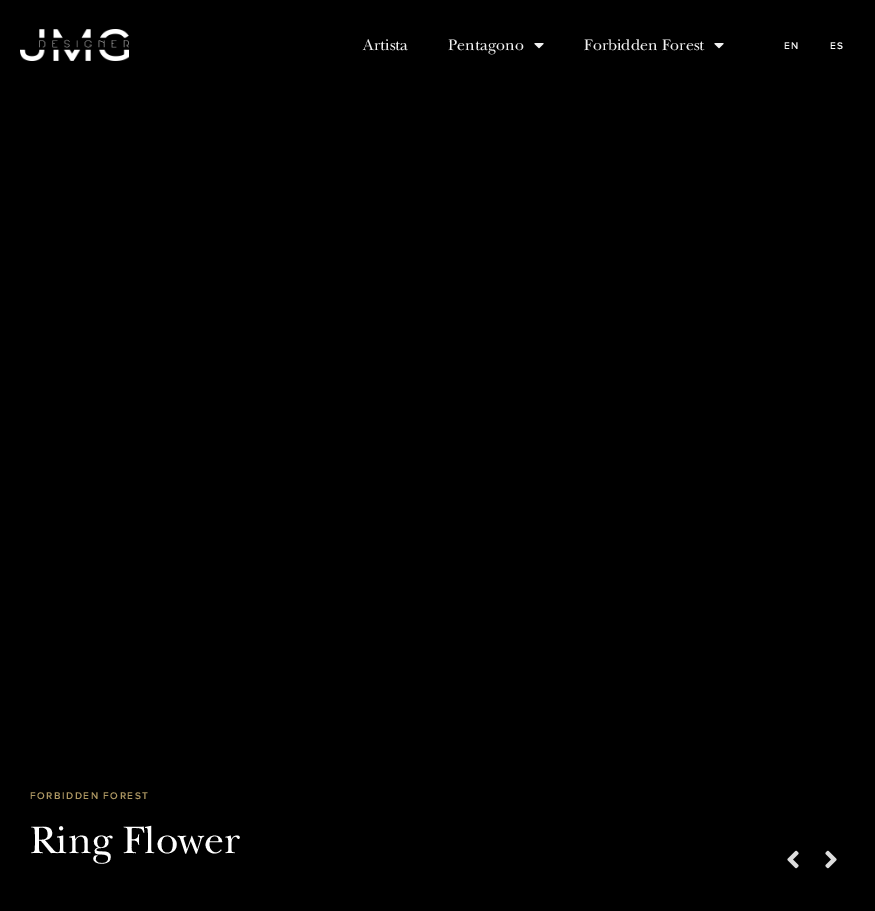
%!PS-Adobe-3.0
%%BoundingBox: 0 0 875 911
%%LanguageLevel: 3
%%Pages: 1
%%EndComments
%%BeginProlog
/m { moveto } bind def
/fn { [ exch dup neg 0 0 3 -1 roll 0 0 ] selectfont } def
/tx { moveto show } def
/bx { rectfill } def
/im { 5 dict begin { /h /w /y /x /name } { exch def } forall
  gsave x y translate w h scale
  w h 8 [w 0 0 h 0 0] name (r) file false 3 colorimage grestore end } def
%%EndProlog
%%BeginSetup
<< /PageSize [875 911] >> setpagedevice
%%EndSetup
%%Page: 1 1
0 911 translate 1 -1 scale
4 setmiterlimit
0 setgray
0 0 875 911 bx
(image0.raw) 20 29 109 32 im
/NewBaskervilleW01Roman-Regular 16 fn
0.945 setgray
(Artista) 363 50 tx
(Pentagono) 448 50 tx
(image1.raw) 534 43 10 6 im
(Forbidden Forest) 584 50 tx
(image1.raw) 714 43 10 6 im
/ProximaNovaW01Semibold-SemiBold 10 fn
784 49 m 1.5 0 (EN) ashow
1 setgray
830 49 m 1.5 0 (ES) ashow
0.682 0.596 0.388 setrgbcolor
30 799 m 1.5 0 (FORBIDDEN FOREST) ashow
/NewBaskervilleW01Roman-Regular 40 fn
1 setgray
(Ring Flower) 30 853 tx
(image2.raw) 787 850 12 19 im
(image3.raw) 825 850 12 19 im
showpage
%%EOF
